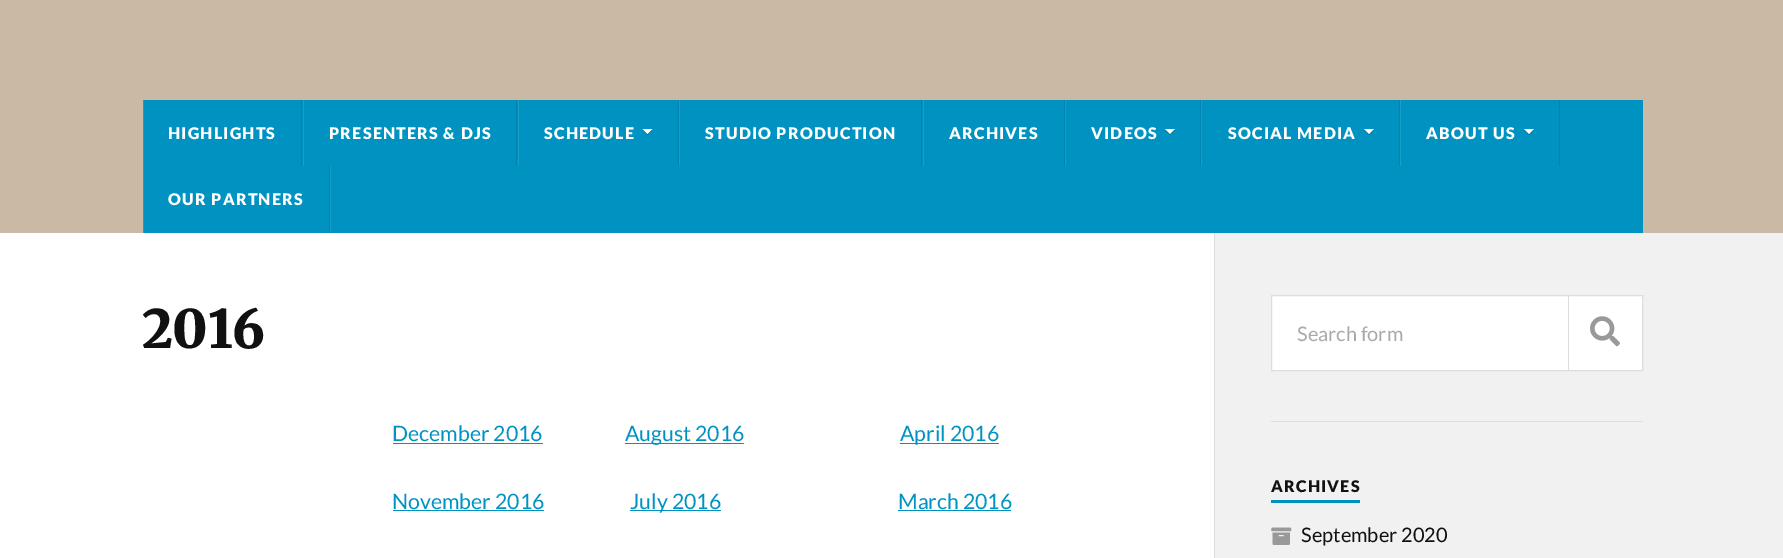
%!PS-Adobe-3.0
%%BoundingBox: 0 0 1783 558
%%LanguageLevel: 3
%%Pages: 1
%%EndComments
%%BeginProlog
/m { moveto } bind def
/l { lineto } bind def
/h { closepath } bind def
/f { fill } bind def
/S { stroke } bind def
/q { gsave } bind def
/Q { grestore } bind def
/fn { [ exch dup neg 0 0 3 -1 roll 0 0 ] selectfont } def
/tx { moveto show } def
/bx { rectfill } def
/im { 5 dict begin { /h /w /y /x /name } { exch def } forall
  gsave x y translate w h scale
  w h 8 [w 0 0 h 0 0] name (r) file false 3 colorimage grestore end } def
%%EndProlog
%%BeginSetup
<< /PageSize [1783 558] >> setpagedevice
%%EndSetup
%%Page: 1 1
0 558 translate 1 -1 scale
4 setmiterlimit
0.945 setgray
0 0 1783 558 bx
0.792 0.729 0.647 setrgbcolor
0 0 1783 233 bx
0 0.576 0.761 setrgbcolor
144 100 1499 133 bx
0 0.518 0.686 setrgbcolor
301 100 1 66 bx
0.102 0.62 0.784 setrgbcolor
143 100 1 133 bx
/Lato-Black 16 fn
1 setgray
168 139 m 1.25 0 (HIGHLIGHTS) ashow
0 0.518 0.686 setrgbcolor
516 100 1 66 bx
0.102 0.62 0.784 setrgbcolor
303 100 1 66 bx
1 setgray
329 139 m 1.25 0 (PRESENTERS & DJS) ashow
0 0.518 0.686 setrgbcolor
678 100 1 66 bx
0.102 0.62 0.784 setrgbcolor
518 100 1 66 bx
1 setgray
544 139 m 1.25 0 (SCHEDULE) ashow
0 0.431 0.573 setrgbcolor
642.5 130 m 652.5 130 l 647.5 135 l h f
1 setgray
642.5 129 m 652.5 129 l 647.5 134 l h f
0 0.518 0.686 setrgbcolor
921 100 1 66 bx
0.102 0.62 0.784 setrgbcolor
679 100 1 66 bx
1 setgray
705 139 m 1.25 0 (STUDIO PRODUCTION) ashow
0 0.518 0.686 setrgbcolor
1064 100 1 66 bx
0.102 0.62 0.784 setrgbcolor
923 100 1 66 bx
1 setgray
949 139 m 1.25 0 (ARCHIVES) ashow
0 0.518 0.686 setrgbcolor
1200 100 1 66 bx
0.102 0.62 0.784 setrgbcolor
1065 100 1 66 bx
1 setgray
1091 139 m 1.25 0 (VIDEOS) ashow
0 0.431 0.573 setrgbcolor
1165 130 m 1175 130 l 1170 135 l h f
1 setgray
1165 129 m 1175 129 l 1170 134 l h f
0 0.518 0.686 setrgbcolor
1399 100 1 66 bx
0.102 0.62 0.784 setrgbcolor
1201 100 1 66 bx
1 setgray
1228 139 m 1.25 0 (SOCIAL MEDIA) ashow
0 0.431 0.573 setrgbcolor
1364 130 m 1374 130 l 1369 135 l h f
1 setgray
1364 129 m 1374 129 l 1369 134 l h f
0 0.518 0.686 setrgbcolor
1559 100 1 66 bx
0.102 0.62 0.784 setrgbcolor
1400 100 1 66 bx
1 setgray
1426 139 m 1.25 0 (ABOUT US) ashow
0 0.431 0.573 setrgbcolor
1524 130 m 1534 130 l 1529 135 l h f
1 setgray
1524 129 m 1534 129 l 1529 134 l h f
0 0.518 0.686 setrgbcolor
329 166 1 67 bx
1 setgray
168 205 m 1.25 0 (OUR PARTNERS) ashow
0.102 0.62 0.784 setrgbcolor
330 166 1 67 bx
1 setgray
0 233 1214 325 bx
/Merriweather-Black 53 fn
0.067 setgray
142 348 m -0.5 0 (2016) ashow
/Lato-Regular 21.25 fn
0 0.576 0.761 setrgbcolor
(December 2016) 392 441 tx
393 443 150 1 bx
625 443 119 1 bx
(August 2016) 625 441 tx
900 443 99 1 bx
(April 2016) 900 441 tx
(November 2016) 392 509 tx
393 510 151 1 bx
630 510 91 1 bx
(July 2016) 630 509 tx
(March 2016) 898 509 tx
898 510 113 1 bx
0.867 setgray
1214 233 1 325 bx
1 setgray
1271.5 295.5 m 1642.5 295.5 l 1642.5 370.5 l 1271.5 370.5 l h q f Q
0.867 setgray
S
/Lato-Regular 20 fn
0.663 setgray
(Search form) 1297 341 tx
0.867 setgray
1568 296 1 74 bx
(image0.raw) 1590 316 30 31 im
1271 421 372 1 bx
0 0.576 0.761 setrgbcolor
1271 500 89 3 bx
/Lato-Black 16 fn
0.067 setgray
1271 492 m 1.25 0 (ARCHIVES) ashow
(image1.raw) 1271 527 21 18 im
/Lato-Regular 20 fn
(September 2020) 1301 542 tx
showpage
%%EOF
